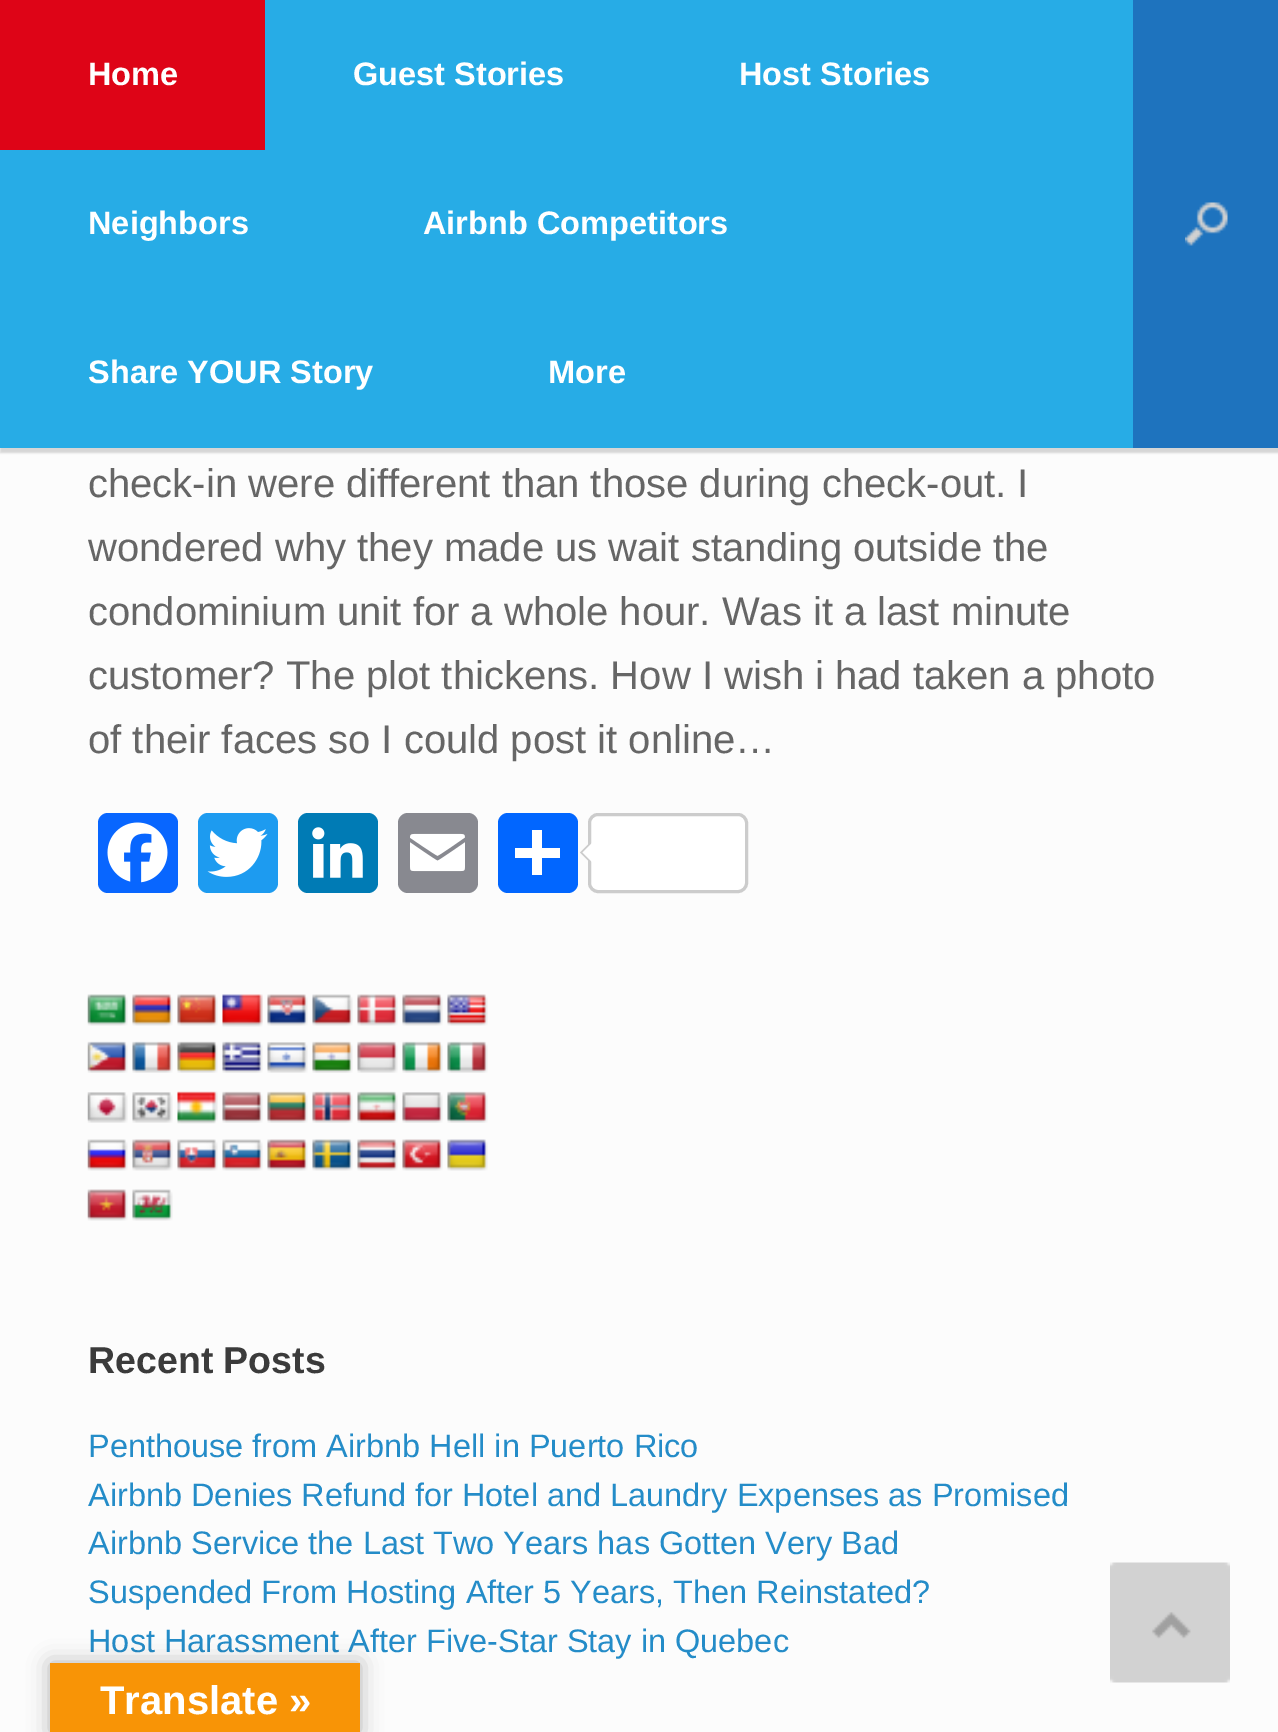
%!PS-Adobe-3.0
%%BoundingBox: 0 0 1278 1732
%%LanguageLevel: 3
%%Pages: 1
%%EndComments
%%BeginProlog
/m { moveto } bind def
/l { lineto } bind def
/h { closepath } bind def
/f { fill } bind def
/S { stroke } bind def
/q { gsave } bind def
/Q { grestore } bind def
/w { setlinewidth } bind def
/fn { [ exch dup neg 0 0 3 -1 roll 0 0 ] selectfont } def
/tx { moveto show } def
/bx { rectfill } def
/al { dup .setfillconstantalpha .setstrokeconstantalpha } def
/rr { 5 dict begin { /r /h /w /y /x } { exch def } forall
  x r add y moveto x w add y 2 copy h add r arct x w add y h add x 1 index r arct
  x y h add x y r arct x y 2 copy exch w add exch r arct closepath end } def
/sh { 12 dict begin { /a /b /q /h /w /y /x } { exch def } forall gsave /was 0 def
  9 -2 -9 { dup b mul 4 div /e exch def 1 sub .425 mul 2.718 exch exp 1 add a .99 .min exch div /now exch def
    1 1 now sub 1 was sub div sub al /was now def
    w h .min e 2 mul add 0 gt { x e sub y e sub w e 2 mul add h e 2 mul add
      q e add b .6 mul add w h .min 2 div e add .min 0 .max rr fill } if } for grestore end } def
/im { 5 dict begin { /h /w /y /x /name } { exch def } forall
  gsave x y translate w h scale
  w h 8 [w 0 0 h 0 0] name (r) file false 3 colorimage grestore end } def
%%EndProlog
%%BeginSetup
<< /PageSize [1278 1732] /PageUsesTransparency true >> setpagedevice
%%EndSetup
%%Page: 1 1
0 .pushpdf14devicefilter
0 1732 translate 1 -1 scale
4 setmiterlimit
0.988 setgray
0 0 1278 1732 bx
0 setgray
0 5 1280 448 0 1 0.15 sh
0.153 0.675 0.902 setrgbcolor
0 0 1133 448 bx
0.871 0.016 0.09 setrgbcolor
0 0 265 150 bx
/LiberationSans-Bold 32.5 fn
1 setgray
(Home) 88 85 tx
(Guest Stories) 353 85 tx
(Host Stories) 739 85 tx
(Neighbors) 88 234 tx
(Airbnb Competitors) 423 234 tx
(Share YOUR Story) 88 383 tx
(More) 548 383 tx
0.118 0.451 0.745 setrgbcolor
1133 0 145 448 bx
(image0.raw) 1185 202 43 44 im
/LiberationSans-Regular 40 fn
0.4 setgray
(check-in were different than those during check-out. I) 88 497 tx
(wondered why they made us wait standing outside the) 88 561 tx
(condominium unit for a whole hour. Was it a last minute) 88 625 tx
(customer? The plot thickens. How I wish i had taken a photo) 88 689 tx
(of their faces so I could post it online…) 88 753 tx
0.031 0.4 1 setrgbcolor
98 813 80 80 10 rr f
(image1.raw) 107 822 61 61 im
0.114 0.608 0.941 setrgbcolor
198 813 80 80 10 rr f
(image2.raw) 207 828 61 49 im
0 0.482 0.71 setrgbcolor
298 813 80 80 10 rr f
(image3.raw) 312 827 51 51 im
0.533 0.537 0.565 setrgbcolor
398 813 80 80 10 rr f
(image4.raw) 410 833 55 39 im
0.004 0.4 1 setrgbcolor
498 813 80 80 10 rr f
1 setgray
532 830 10 45 bx
515 848 45 10 bx
589.5 814.5 157 77 8.5 rr q f Q
0.8 setgray
3 w
S
590 842.5 m 590 862.5 l 580 852.5 l h f
1 setgray
592.5 842.5 m 592.5 862.5 l 582.5 852.5 l h f
(image5.raw) 87 994 41 32 im
(image6.raw) 132 994 41 32 im
(image7.raw) 177 994 41 32 im
(image8.raw) 222 994 41 33 im
(image9.raw) 267 994 41 32 im
(image10.raw) 312 994 41 32 im
(image11.raw) 357 994 41 32 im
(image12.raw) 402 994 41 32 im
(image13.raw) 447 994 41 32 im
(image14.raw) 87 1041 41 32 im
(image15.raw) 132 1041 41 32 im
(image16.raw) 177 1041 41 32 im
(image17.raw) 222 1041 41 32 im
(image18.raw) 267 1042 41 31 im
(image19.raw) 312 1041 41 32 im
(image20.raw) 357 1041 41 32 im
(image21.raw) 402 1041 41 32 im
(image22.raw) 447 1041 41 32 im
(image23.raw) 87 1092 41 31 im
(image24.raw) 132 1092 41 31 im
(image25.raw) 177 1091 41 33 im
(image26.raw) 222 1091 41 32 im
(image27.raw) 267 1091 41 32 im
(image28.raw) 312 1091 41 32 im
(image29.raw) 357 1091 41 32 im
(image30.raw) 402 1092 41 31 im
(image31.raw) 447 1091 41 32 im
(image32.raw) 87 1139 41 32 im
(image33.raw) 132 1139 41 32 im
(image34.raw) 177 1139 41 32 im
(image35.raw) 222 1139 41 32 im
(image36.raw) 267 1139 41 32 im
(image37.raw) 312 1139 41 32 im
(image38.raw) 357 1139 41 32 im
(image39.raw) 402 1139 41 32 im
(image40.raw) 447 1139 41 32 im
(image41.raw) 87 1189 41 32 im
(image42.raw) 132 1189 41 32 im
/LiberationSans-Bold 37.5 fn
0.231 setgray
(Recent Posts) 88 1373 tx
/LiberationSans-Regular 32.5 fn
0.141 0.549 0.784 setrgbcolor
(Penthouse from Airbnb Hell in Puerto Rico) 88 1457 tx
(Airbnb Denies Refund for Hotel and Laundry Expenses as Promised) 88 1506 tx
(Airbnb Service the Last Two Years has Gotten Very Bad) 88 1554 tx
(Suspended From Hosting After 5 Years, Then Reinstated?) 88 1603 tx
(Host Harassment After Five-Star Stay in Quebec) 88 1652 tx
(image43.raw) 1110 1562 120 121 im
0 setgray
50 1663 310 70 0 11 0.3 sh
0.973 0.58 0.024 setrgbcolor
50 1663 310 69 bx
/LiberationSans-Bold 40 fn
1 setgray
(Translate ») 100 1714 tx
.poppdf14devicefilter showpage
%%EOF
